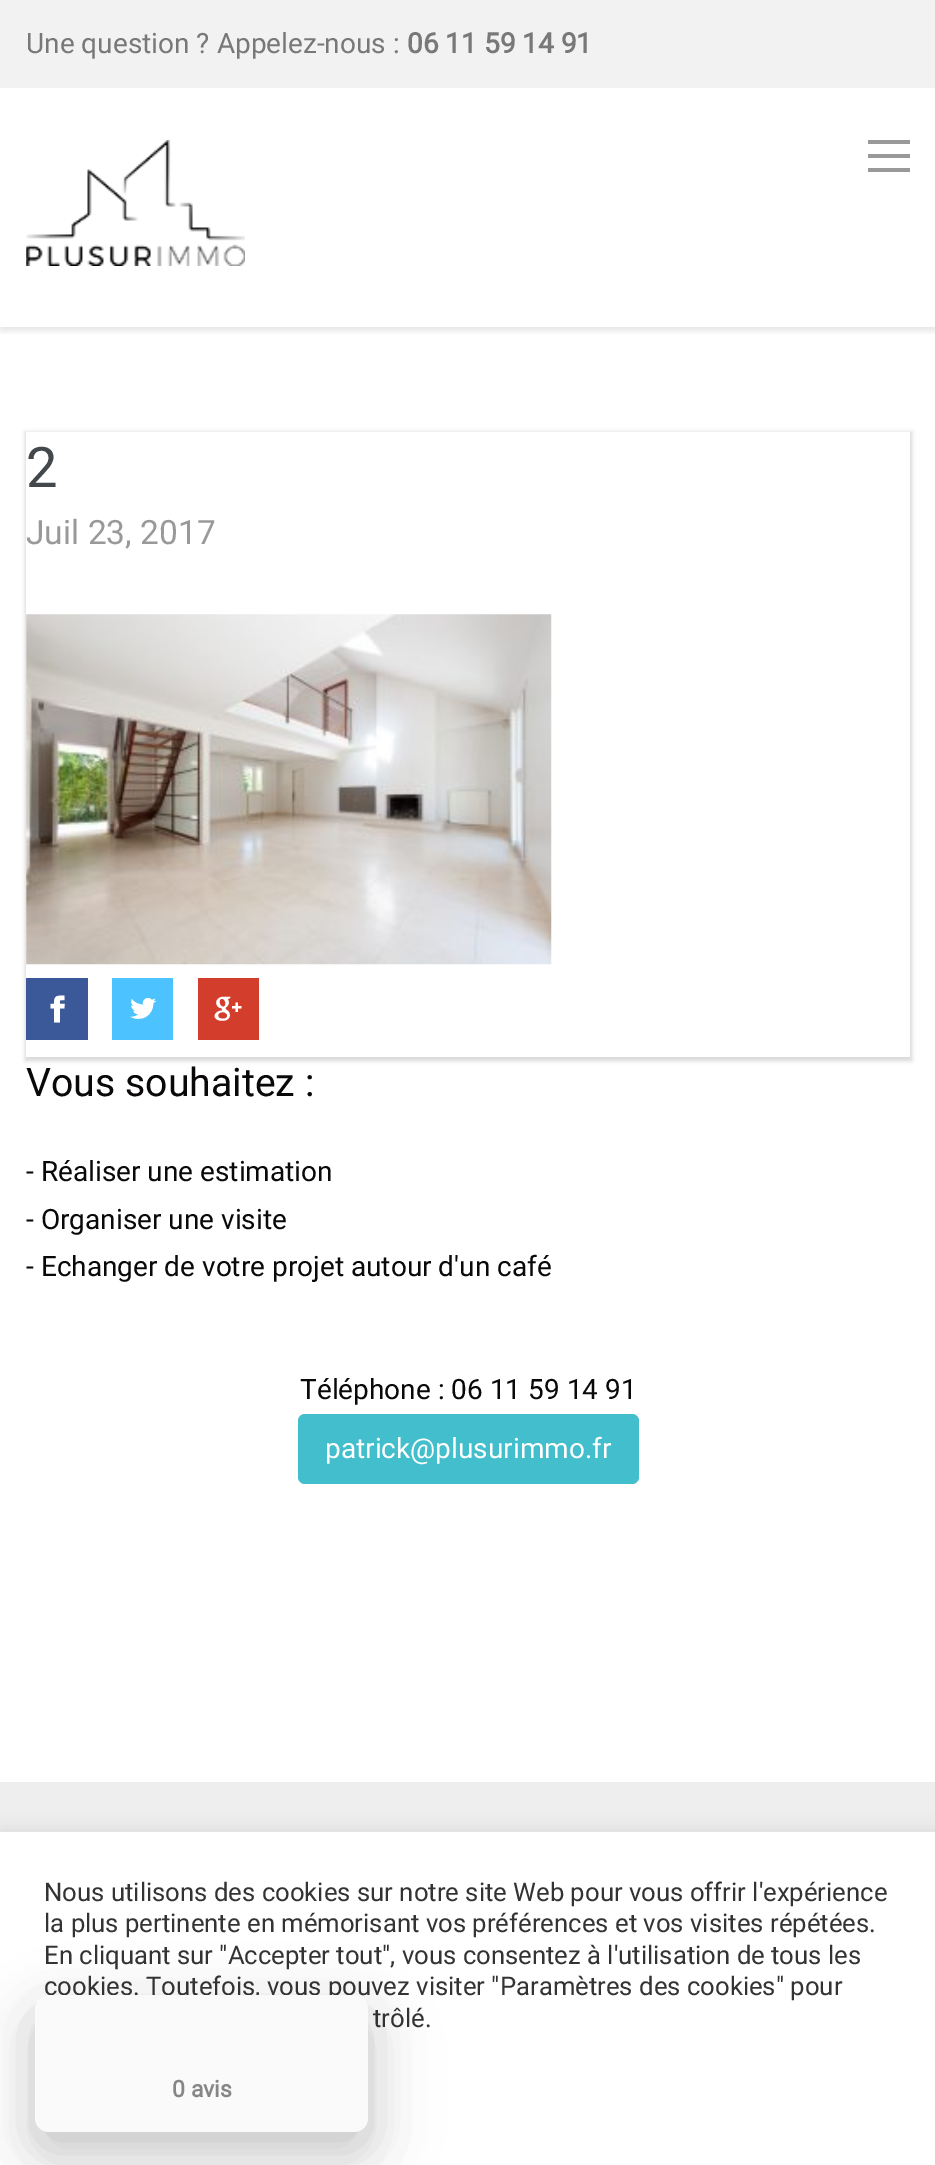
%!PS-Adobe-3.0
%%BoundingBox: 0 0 935 2165
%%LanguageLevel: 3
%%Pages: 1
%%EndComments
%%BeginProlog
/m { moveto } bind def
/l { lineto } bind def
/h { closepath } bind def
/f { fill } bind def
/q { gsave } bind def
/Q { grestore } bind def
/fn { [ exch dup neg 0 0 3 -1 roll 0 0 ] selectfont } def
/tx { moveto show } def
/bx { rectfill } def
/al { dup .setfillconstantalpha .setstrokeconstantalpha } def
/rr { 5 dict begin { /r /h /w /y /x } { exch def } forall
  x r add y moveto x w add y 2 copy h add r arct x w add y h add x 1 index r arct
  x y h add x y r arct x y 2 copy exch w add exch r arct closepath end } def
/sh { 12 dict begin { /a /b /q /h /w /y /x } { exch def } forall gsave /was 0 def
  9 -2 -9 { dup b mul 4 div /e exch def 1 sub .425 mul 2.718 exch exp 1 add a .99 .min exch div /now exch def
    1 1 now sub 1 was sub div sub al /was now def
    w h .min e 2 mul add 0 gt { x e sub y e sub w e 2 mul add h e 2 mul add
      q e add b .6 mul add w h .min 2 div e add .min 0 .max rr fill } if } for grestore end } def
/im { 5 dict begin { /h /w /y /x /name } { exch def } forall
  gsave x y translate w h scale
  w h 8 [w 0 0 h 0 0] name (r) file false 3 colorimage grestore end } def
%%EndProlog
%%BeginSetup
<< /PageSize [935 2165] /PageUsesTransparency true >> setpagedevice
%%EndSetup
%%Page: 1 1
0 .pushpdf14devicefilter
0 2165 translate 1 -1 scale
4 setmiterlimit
1 setgray
0 0 935 2165 bx
q
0 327 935 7 rectclip
0 setgray
0 4 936 327 0 3.5 0.1 sh
Q
0.949 setgray
0 0 935 88 bx
/Roboto-Regular 28 fn
0.471 setgray
(Une question ? Appelez-nous :) 26 53 tx
/Roboto-Bold 28 fn
(06 11 59 14 91) 407 53 tx
(image0.raw) 26 140 219 126 im
0.6 setgray
868 154 42 4 bx
868 140 42 4 bx
868 168 42 4 bx
q
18 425 m 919 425 l 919 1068 l 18 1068 l h 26 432 m 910 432 l 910 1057 l 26 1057 l h eoclip newpath
0 setgray
25 432 887 629 0 2 0.15 sh
Q
/Roboto-Regular 56 fn
0.259 0.282 0.294 setrgbcolor
(2) 26 487 tx
/Roboto-Regular 33.5 fn
0.6 setgray
(Juil 23, 2017) 26 544 tx
(image1.raw) 26 614 526 351 im
0.231 0.349 0.596 setrgbcolor
26 978 62 62 bx
/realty-Regular 28 fn
1 setgray
(\() 43 1023 tx
0.298 0.761 1 setrgbcolor
112 978 61 62 bx
1 setgray
(,) 129 1023 tx
0.824 0.243 0.169 setrgbcolor
198 978 61 62 bx
1 setgray
(\)) 214 1023 tx
/Roboto-Regular 39.25 fn
0.039 0.031 0.031 setrgbcolor
(Vous souhaitez :) 26 1096 tx
/Roboto-Regular 28 fn
(- Réaliser une estimation) 26 1181 tx
(- Organiser une visite) 26 1229 tx
(- Echanger de votre projet autour d'un café) 26 1276 tx
(Téléphone : 06 11 59 14 91) 300 1399 tx
0.263 0.745 0.8 setrgbcolor
298 1414 341 70 7 rr f
1 setgray
(patrick@plusurimmo.fr) 325 1458 tx
0.933 setgray
0 1782 935 50 bx
0.675 0.671 0.671 setrgbcolor
0 1831 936 334 0 9 0.3 sh
1 setgray
0 1832 935 333 bx
/Roboto-Regular 25.7 fn
0.2 setgray
(Nous utilisons des cookies sur notre site Web pour vous offrir l'expérience) 44 1901 tx
(la plus pertinente en mémorisant vos préférences et vos visites répétées.) 44 1932 tx
(En cliquant sur "Accepter tout", vous consentez à l'utilisation de tous les) 44 1964 tx
(cookies. Toutefois, vous pouvez visiter "Paramètres des cookies" pour) 44 1995 tx
(trôlé.) 373 2027 tx
0 setgray
35 2013 333 136 14 26 0.15 sh
35 2021 333 137 14 35 0.1 sh
0.98 setgray
35 1995 333 137 14 rr f
/Roboto-Bold 23 fn
0.525 setgray
(0 avis) 172 2097 tx
.poppdf14devicefilter showpage
%%EOF
